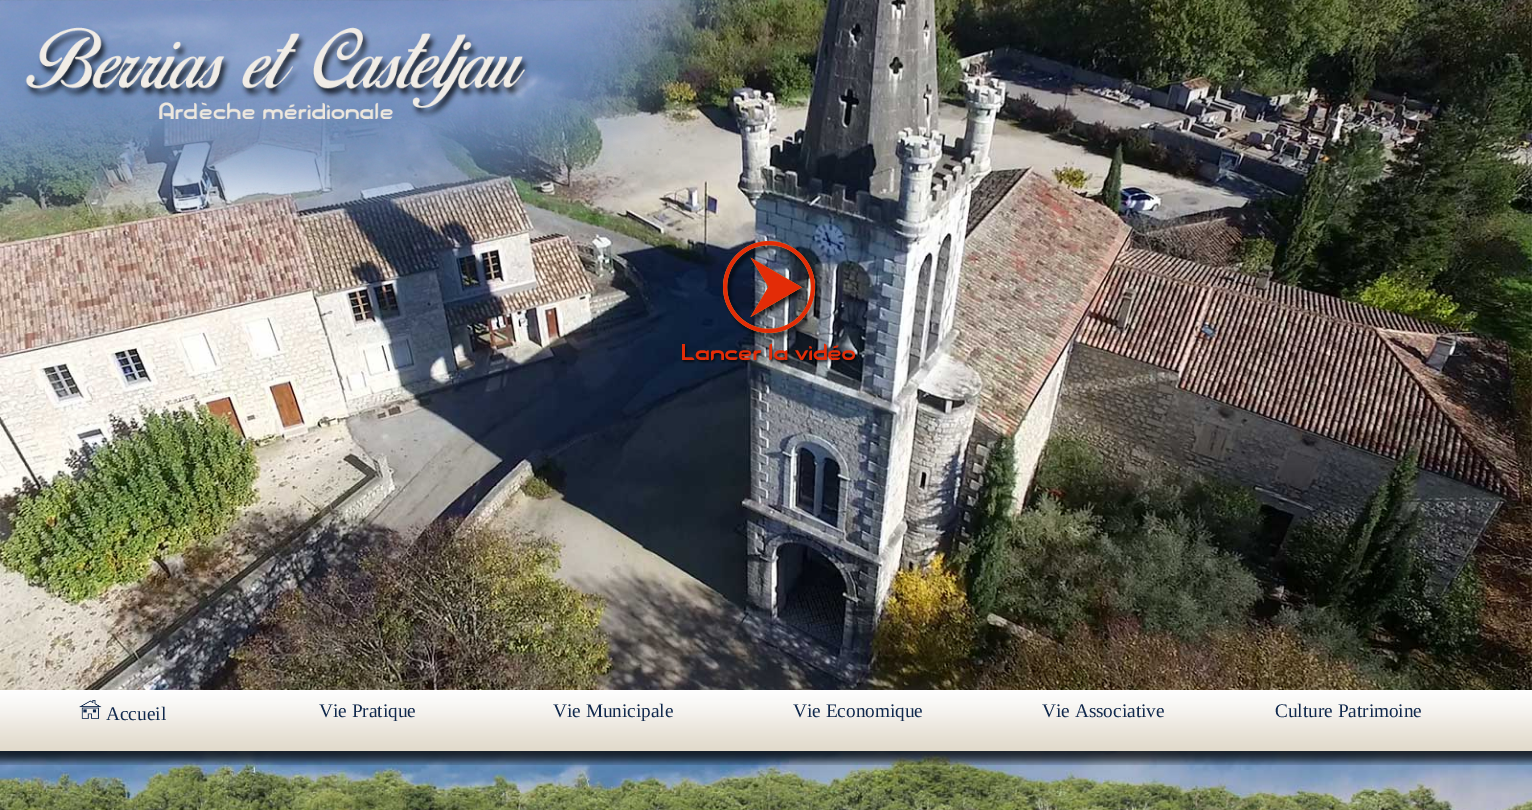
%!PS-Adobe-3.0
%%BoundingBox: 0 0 1532 810
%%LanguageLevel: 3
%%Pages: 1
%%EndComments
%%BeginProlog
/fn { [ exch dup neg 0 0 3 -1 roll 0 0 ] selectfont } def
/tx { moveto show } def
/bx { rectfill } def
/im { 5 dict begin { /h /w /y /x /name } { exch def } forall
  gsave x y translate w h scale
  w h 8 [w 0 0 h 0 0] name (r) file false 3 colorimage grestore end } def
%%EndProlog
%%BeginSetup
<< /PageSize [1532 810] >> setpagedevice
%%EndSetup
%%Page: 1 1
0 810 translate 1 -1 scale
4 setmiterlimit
1 setgray
0 0 1532 810 bx
(image0.raw) 0 0 1532 690 im
(image1.raw) 0 0 766 246 im
(image2.raw) 681 241 176 123 im
(image5.raw) 0 751 1532 59 im
(image3.raw) 0 690 1532 75 im
(image4.raw) 79 700 23 19 im
/LiberationSerif-Regular 19.25 fn
0.063 0.157 0.298 setrgbcolor
(Accueil) 106 720 tx
(Vie Pratique) 319 717 tx
(Vie Municipale) 553 717 tx
(Vie Economique) 793 717 tx
(Vie Associative) 1042 717 tx
(Culture Patrimoine) 1275 717 tx
showpage
%%EOF
